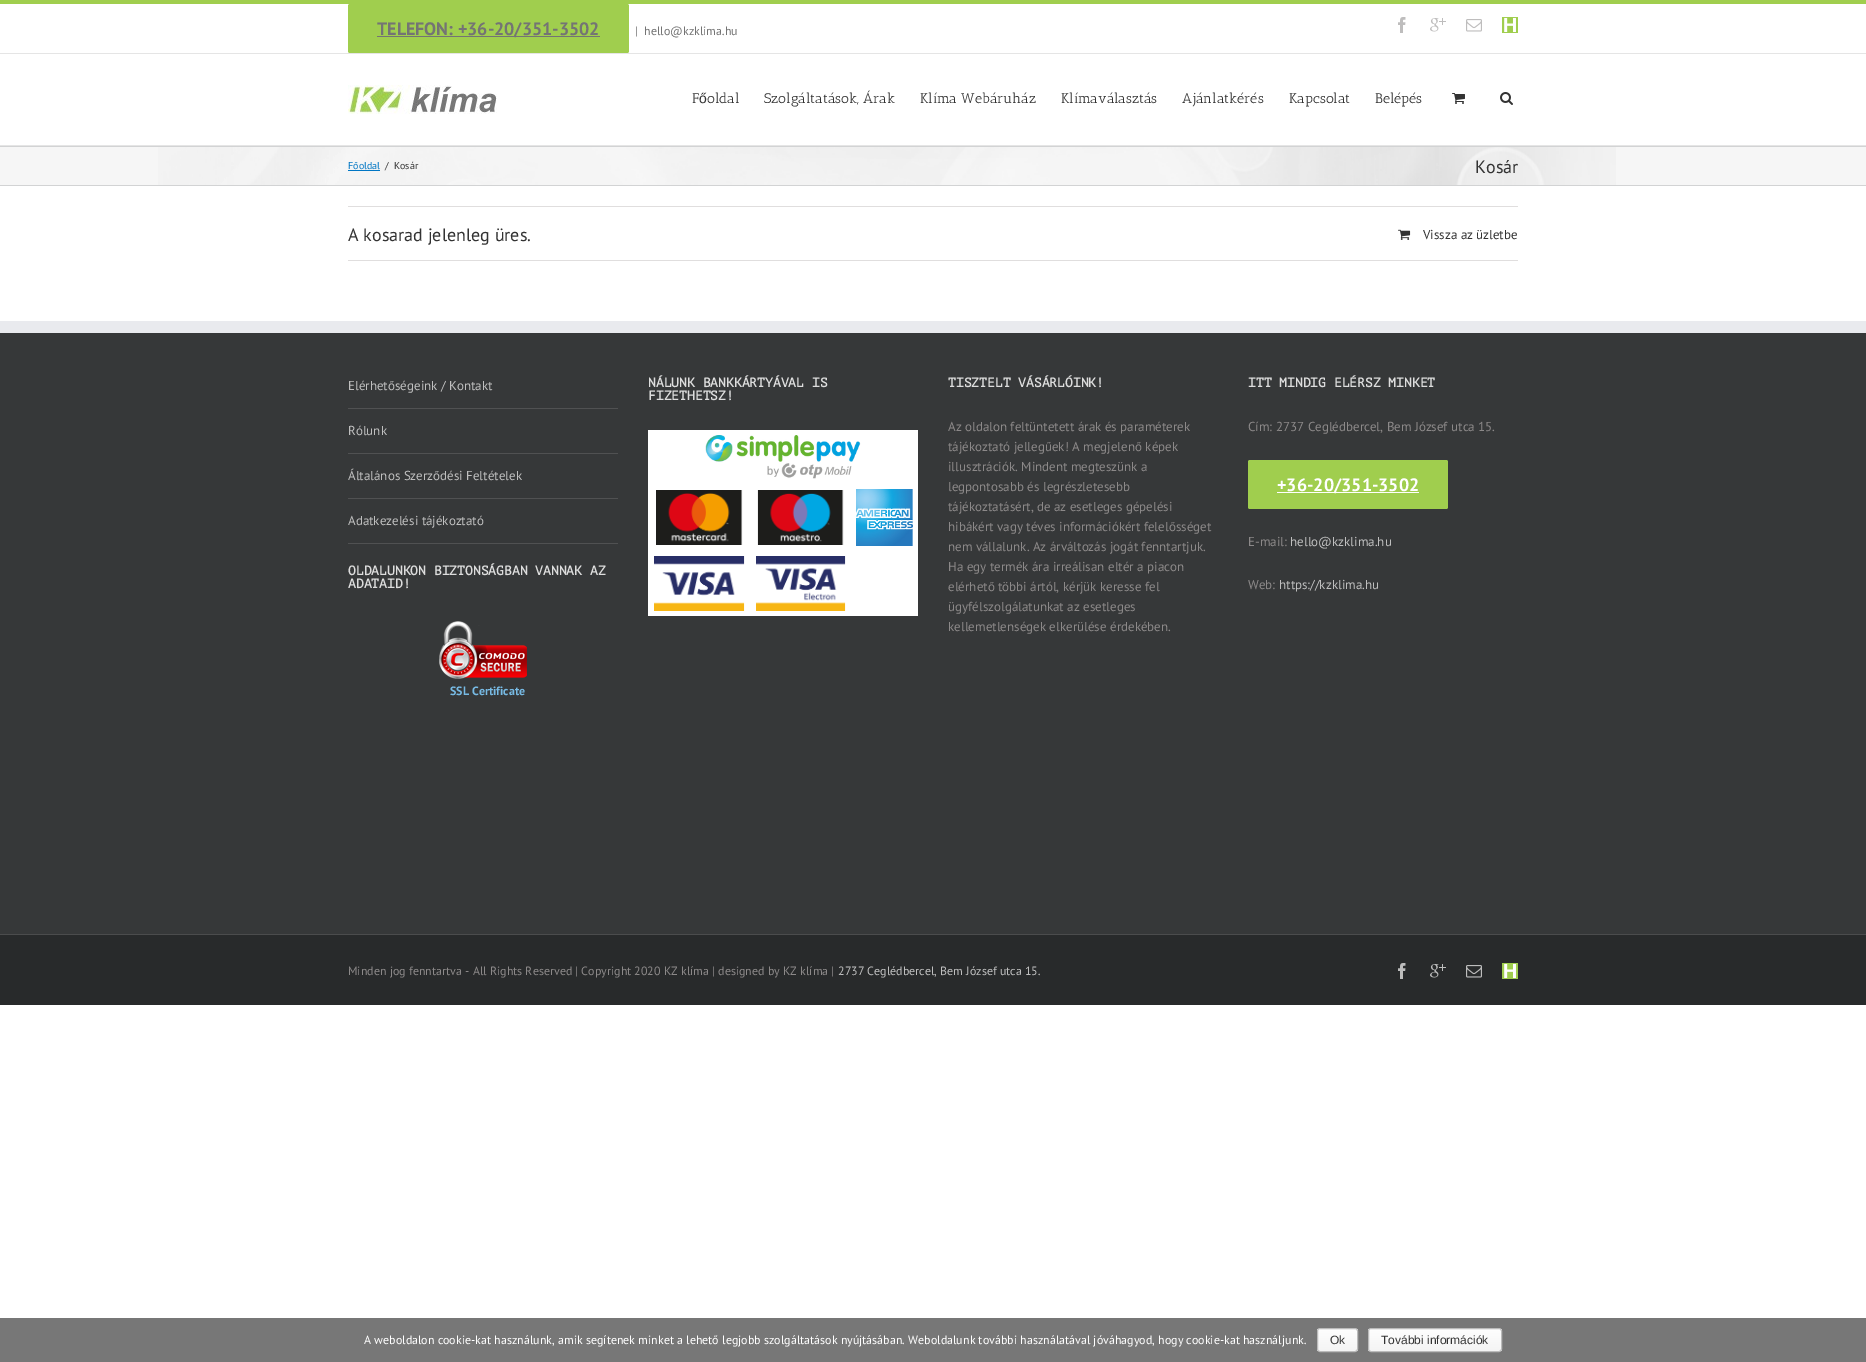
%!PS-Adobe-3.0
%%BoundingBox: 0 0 1866 1362
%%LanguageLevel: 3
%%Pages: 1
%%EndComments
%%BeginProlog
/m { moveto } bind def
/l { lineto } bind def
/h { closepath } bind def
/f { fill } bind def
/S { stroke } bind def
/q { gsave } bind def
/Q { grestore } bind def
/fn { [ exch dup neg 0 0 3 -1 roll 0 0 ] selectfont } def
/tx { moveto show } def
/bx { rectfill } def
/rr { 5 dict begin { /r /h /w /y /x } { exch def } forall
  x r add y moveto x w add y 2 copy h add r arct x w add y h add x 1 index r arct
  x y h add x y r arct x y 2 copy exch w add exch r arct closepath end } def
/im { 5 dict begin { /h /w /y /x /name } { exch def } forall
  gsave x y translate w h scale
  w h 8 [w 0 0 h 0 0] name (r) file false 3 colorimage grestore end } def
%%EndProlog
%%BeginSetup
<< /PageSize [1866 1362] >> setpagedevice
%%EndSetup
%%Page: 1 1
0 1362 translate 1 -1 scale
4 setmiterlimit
1 setgray
0 0 1866 1362 bx
0.627 0.808 0.306 setrgbcolor
0 0 1866 4 bx
0.898 setgray
0 53 1866 1 bx
0.627 0.808 0.306 setrgbcolor
348 4 281 49 2 rr f
0.455 setgray
377 36 223 1 bx
/PTSans-Bold 18 fn
(TELEFON: +36-20/351-3502) 377 35 tx
/PTSans-Regular 12 fn
(|) 635 35 tx
(hello@kzklima.hu) 644 35 tx
(image0.raw) 1398 17 8 16 im
(image1.raw) 1430 18 16 14 im
(image2.raw) 1466 19 16 13 im
(image3.raw) 1502 17 16 16 im
0.898 setgray
0 145 1866 1 bx
(image4.raw) 348 85 149 29 im
/AnticSlab-Regular 14 fn
0.2 setgray
(F) 692 103 tx
/LiberationSans-Regular 14 fn
(ő) 699 103 tx
/AnticSlab-Regular 14 fn
(oldal) 707 103 tx
(Szolgáltatások, Árak) 764 103 tx
(Klíma Webáruház) 920 103 tx
(Klímaválasztás) 1061 103 tx
(Ajánlatkérés) 1182 103 tx
(Kapcsolat) 1289 103 tx
(Belépés) 1375 103 tx
(image5.raw) 1452 93 13 11 im
(image6.raw) 1500 92 13 13 im
0.965 setgray
0 147 1866 38 bx
(image7.raw) 158 147 1458 38 im
0.824 0.827 0.831 setrgbcolor
0 146 1866 1 bx
0 185 1866 1 bx
/PTSans-Regular 10 fn
0 0.463 0.769 setrgbcolor
(Főoldal) 348 169 tx
348 170 32 1 bx
0.2 setgray
(/) 385 169 tx
(Kosár) 394 169 tx
/PTSans-Regular 18 fn
(Kosár) 1475 173 tx
0.878 0.871 0.871 setrgbcolor
348 206 1170 1 bx
348 260 1170 1 bx
0.2 setgray
(A kosarad jelenleg üres.) 348 241 tx
(image8.raw) 1398 229 13 11 im
/PTSans-Regular 13 fn
(Vissza az üzletbe) 1423 239 tx
0.212 0.22 0.224 setrgbcolor
0 333 1866 601 bx
0.914 0.918 0.933 setrgbcolor
0 321 1866 12 bx
0.314 0.318 0.322 setrgbcolor
348 408 270 1 bx
0.749 setgray
(Elérhetőségeink / Kontakt) 348 390 tx
0.314 0.318 0.322 setrgbcolor
348 453 270 1 bx
0.749 setgray
(Rólunk) 348 435 tx
0.314 0.318 0.322 setrgbcolor
348 498 270 1 bx
0.749 setgray
(Általános Szerződési Feltételek) 348 480 tx
0.314 0.318 0.322 setrgbcolor
348 543 270 1 bx
0.749 setgray
(Adatkezelési tájékoztató) 348 525 tx
/PTMono-Bold 13 fn
0.867 setgray
(OLDALUNKON BIZTONSÁGBAN VANNAK AZ) 348 575 tx
(ADATAID!) 348 588 tx
(image9.raw) 439 621 88 58 im
/PTSans-Bold 12 fn
0.467 0.729 0.894 setrgbcolor
(SSL Certificate) 450 695 tx
/PTMono-Bold 13 fn
0.867 setgray
(NÁLUNK BANKKÁRTYÁVAL IS) 648 387 tx
(FIZETHETSZ!) 648 400 tx
1 setgray
648 430 270 186 bx
(image10.raw) 705 435 156 44 im
(image11.raw) 656 490 87 55 im
(image12.raw) 757 490 87 55 im
(image13.raw) 856 489 57 57 im
(image14.raw) 654 556 91 55 im
(image15.raw) 756 556 90 55 im
0.867 setgray
(TISZTELT VÁSÁRLÓINK!) 948 387 tx
/PTSans-Regular 13 fn
0.549 0.537 0.537 setrgbcolor
(Az oldalon feltüntetett árak és paraméterek) 948 431 tx
(tájékoztató jellegűek! A megjelenő képek) 948 451 tx
(illusztrációk. Mindent megteszünk a) 948 471 tx
(legpontosabb és legrészletesebb) 948 491 tx
(tájékoztatásért, de az esetleges gépelési) 948 511 tx
(hibákért vagy téves információkért felelősséget) 948 531 tx
(nem vállalunk. Az árváltozás jogát fenntartjuk.) 948 551 tx
(Ha egy termék ára irreálisan eltér a piacon) 948 571 tx
(elérhető többi ártól, kérjük keresse fel) 948 591 tx
(ügyfélszolgálatunkat az esetleges) 948 611 tx
(kellemetlenségek elkerülése érdekében.) 948 631 tx
/PTMono-Bold 13 fn
0.867 setgray
(ITT MINDIG ELÉRSZ MINKET) 1248 387 tx
/PTSans-Regular 13 fn
0.549 0.537 0.537 setrgbcolor
(Cím: 2737 Ceglédbercel, Bem József utca 15.) 1248 431 tx
0.627 0.808 0.306 setrgbcolor
1248 460 200 49 2 rr f
1 setgray
1277 492 142 1 bx
/PTSans-Bold 18 fn
(+36-20/351-3502) 1277 491 tx
/PTSans-Regular 13 fn
0.549 0.537 0.537 setrgbcolor
(E-mail:) 1248 546 tx
0.749 setgray
(hello@kzklima.hu) 1290 546 tx
0.549 0.537 0.537 setrgbcolor
(Web:) 1248 589 tx
0.749 setgray
(https://kzklima.hu) 1279 589 tx
0.157 0.165 0.169 setrgbcolor
0 935 1866 70 bx
0.294 0.298 0.302 setrgbcolor
0 934 1866 1 bx
/PTSans-Regular 12 fn
0.549 0.537 0.537 setrgbcolor
(Minden jog fenntartva - All Rights Reserved | Copyright 2020 KZ klíma | designed by KZ klíma |) 348 975 tx
0.749 setgray
(2737 Ceglédbercel, Bem József utca 15.) 838 975 tx
(image16.raw) 1398 963 8 16 im
(image17.raw) 1430 964 16 14 im
(image18.raw) 1466 965 16 13 im
(image3.raw) 1502 963 16 16 im
0.467 setgray
0 1318 1866 44 bx
1 setgray
(A weboldalon cookie-kat használunk, amik segítenek minket a lehető legjobb szolgáltatások nyújtásában. Weboldalunk további használatával jóváhagyod, hogy cookie-kat használjunk.) 364 1344 tx
q
1317 1328 41 24 3 rr clip newpath
q 1317 1329 m 1358 1329 l 1358 1351 l 1317 1351 l h clip newpath
<< /ShadingType 2 /ColorSpace /DeviceRGB /Coords [1338 1329 1338 1351] /Extend [true true] /Function << /FunctionType 2 /Domain [0 1] /C0 [0.996 0.996 0.996] /C1 [0.957 0.957 0.957] /N 1 >> >> shfill Q
Q
0.733 setgray
1317.5 1328.5 40 23 2.5 rr S
/LiberationSans-Regular 12 fn
0.2 setgray
(Ok) 1330 1344 tx
q
1368 1328 134 24 3 rr clip newpath
q 1368 1329 m 1502 1329 l 1502 1351 l 1368 1351 l h clip newpath
<< /ShadingType 2 /ColorSpace /DeviceRGB /Coords [1435 1329 1435 1351] /Extend [true true] /Function << /FunctionType 2 /Domain [0 1] /C0 [0.996 0.996 0.996] /C1 [0.957 0.957 0.957] /N 1 >> >> shfill Q
Q
0.733 setgray
1368.5 1328.5 133 23 2.5 rr S
0.2 setgray
(További információk) 1381 1344 tx
showpage
%%EOF
